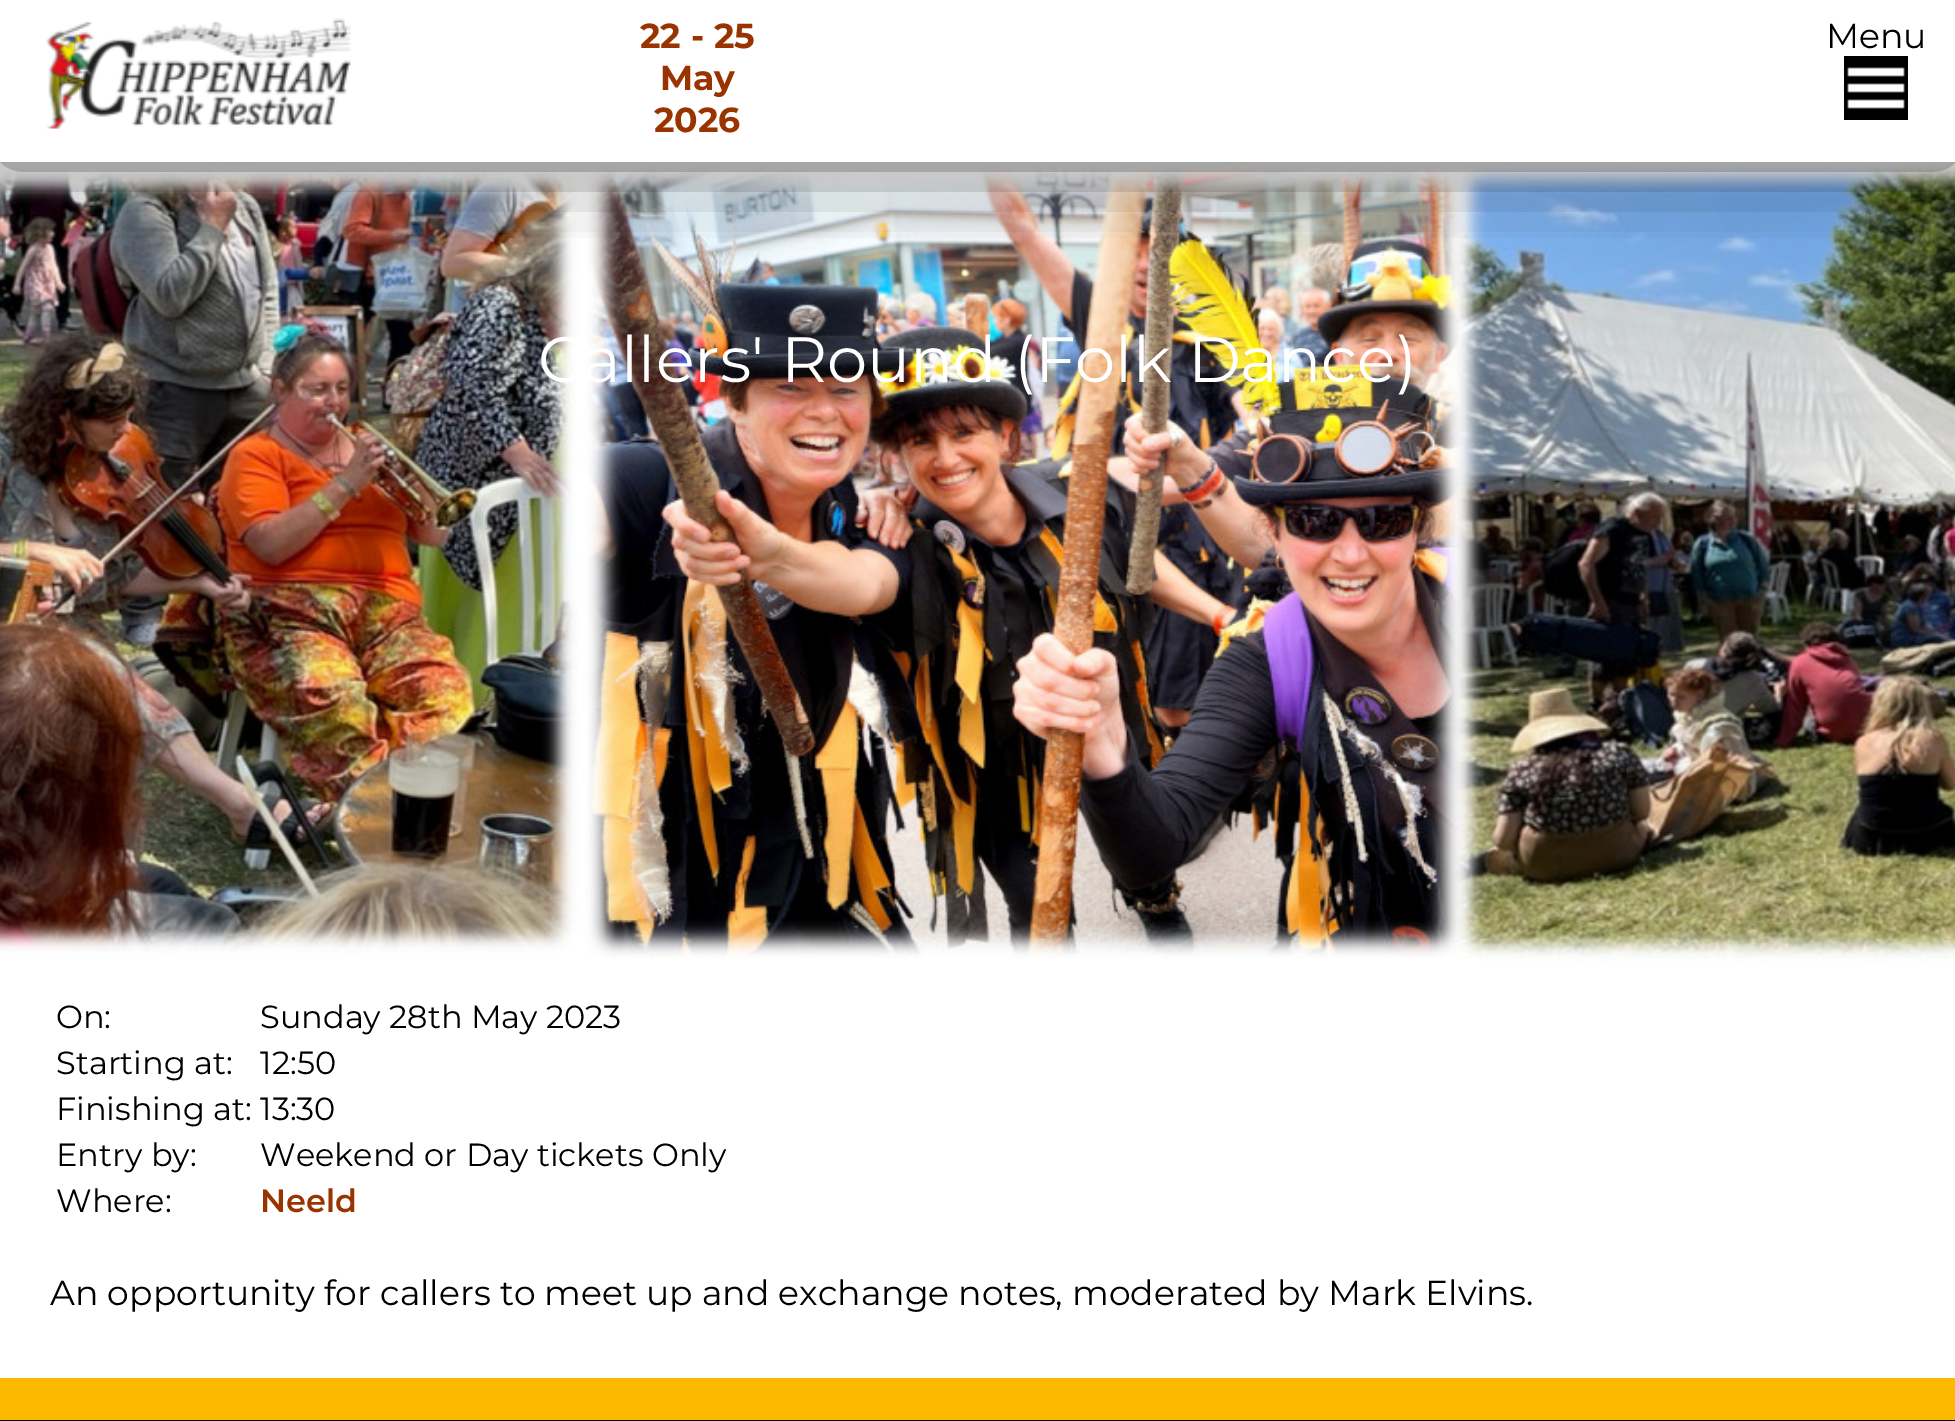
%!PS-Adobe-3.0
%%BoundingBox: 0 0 1955 1421
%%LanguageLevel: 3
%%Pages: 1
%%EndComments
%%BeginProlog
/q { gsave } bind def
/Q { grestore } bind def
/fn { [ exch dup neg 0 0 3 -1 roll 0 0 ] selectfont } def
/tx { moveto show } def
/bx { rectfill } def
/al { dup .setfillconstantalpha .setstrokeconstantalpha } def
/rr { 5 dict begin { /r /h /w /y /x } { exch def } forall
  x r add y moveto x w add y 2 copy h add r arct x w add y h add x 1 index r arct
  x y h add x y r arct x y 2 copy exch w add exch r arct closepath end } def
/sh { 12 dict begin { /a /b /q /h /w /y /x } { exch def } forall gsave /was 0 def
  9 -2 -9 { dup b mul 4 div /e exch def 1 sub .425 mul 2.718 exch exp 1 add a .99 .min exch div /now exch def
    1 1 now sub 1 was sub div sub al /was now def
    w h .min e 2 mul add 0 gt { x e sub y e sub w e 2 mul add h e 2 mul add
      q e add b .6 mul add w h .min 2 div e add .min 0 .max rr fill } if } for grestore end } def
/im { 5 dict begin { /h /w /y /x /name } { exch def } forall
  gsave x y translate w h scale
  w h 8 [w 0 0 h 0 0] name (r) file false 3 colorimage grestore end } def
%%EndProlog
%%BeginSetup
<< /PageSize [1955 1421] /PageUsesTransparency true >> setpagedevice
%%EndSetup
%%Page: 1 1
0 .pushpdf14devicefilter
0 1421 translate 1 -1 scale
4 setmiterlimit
0.988 0.725 0 setrgbcolor
0 0 1955 1421 bx
1 setgray
0 0 1955 1378 bx
(image2.raw) 0 162 1955 800 im
q
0 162 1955 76 rectclip
0 setgray
0 0 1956 162 0 40 0.7 sh
Q
(image0.raw) 46 18 305 111 im
/Montserrat-Bold 34.65 fn
0.6 0.2 0 setrgbcolor
(22 - 25) 640 48 tx
(May) 660 90 tx
(2026) 654 132 tx
/Montserrat-Regular 34.65 fn
0 setgray
(Menu) 1826 48 tx
(image1.raw) 1844 56 64 64 im
/Montserrat-Regular 64 fn
1 setgray
(Callers' Round \(Folk Dance\)) 538 382 tx
/Montserrat-Regular 32 fn
0 setgray
(On:) 56 1028 tx
(Sunday 28th May 2023) 260 1028 tx
(Starting at:) 56 1074 tx
(12:50) 260 1074 tx
(Finishing at:) 56 1120 tx
(13:30) 260 1120 tx
(Entry by:) 56 1166 tx
(Weekend or Day tickets Only) 260 1166 tx
(Where:) 56 1212 tx
/Montserrat-SemiBold 32 fn
0.6 0.2 0 setrgbcolor
(Neeld) 260 1212 tx
/Montserrat-Regular 34.65 fn
0 setgray
(An opportunity for callers to meet up and exchange notes, moderated by Mark Elvins.) 50 1305 tx
0 1420 1955 1 bx
.poppdf14devicefilter showpage
%%EOF
